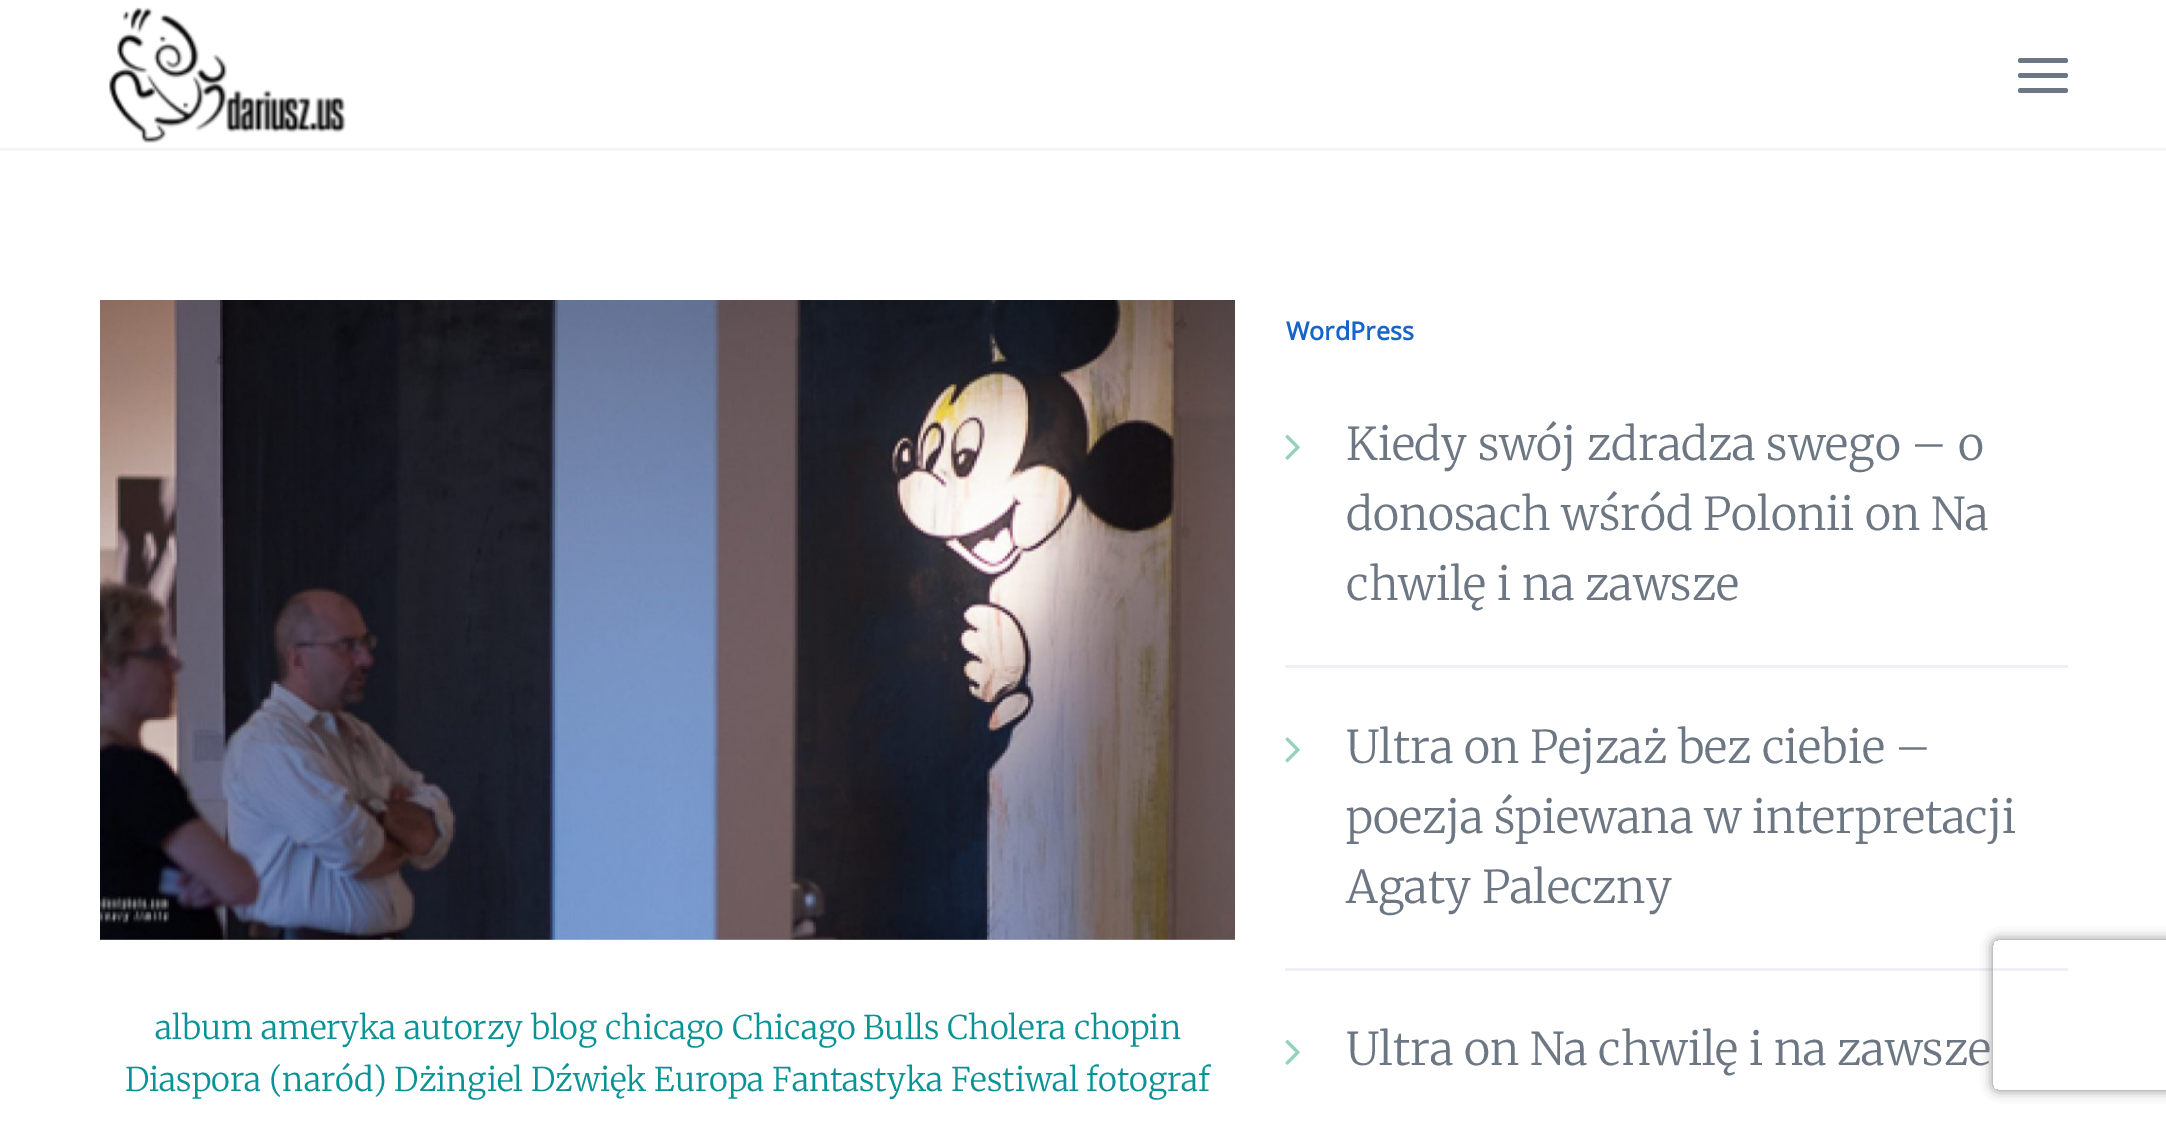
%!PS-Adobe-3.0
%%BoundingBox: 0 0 2166 1124
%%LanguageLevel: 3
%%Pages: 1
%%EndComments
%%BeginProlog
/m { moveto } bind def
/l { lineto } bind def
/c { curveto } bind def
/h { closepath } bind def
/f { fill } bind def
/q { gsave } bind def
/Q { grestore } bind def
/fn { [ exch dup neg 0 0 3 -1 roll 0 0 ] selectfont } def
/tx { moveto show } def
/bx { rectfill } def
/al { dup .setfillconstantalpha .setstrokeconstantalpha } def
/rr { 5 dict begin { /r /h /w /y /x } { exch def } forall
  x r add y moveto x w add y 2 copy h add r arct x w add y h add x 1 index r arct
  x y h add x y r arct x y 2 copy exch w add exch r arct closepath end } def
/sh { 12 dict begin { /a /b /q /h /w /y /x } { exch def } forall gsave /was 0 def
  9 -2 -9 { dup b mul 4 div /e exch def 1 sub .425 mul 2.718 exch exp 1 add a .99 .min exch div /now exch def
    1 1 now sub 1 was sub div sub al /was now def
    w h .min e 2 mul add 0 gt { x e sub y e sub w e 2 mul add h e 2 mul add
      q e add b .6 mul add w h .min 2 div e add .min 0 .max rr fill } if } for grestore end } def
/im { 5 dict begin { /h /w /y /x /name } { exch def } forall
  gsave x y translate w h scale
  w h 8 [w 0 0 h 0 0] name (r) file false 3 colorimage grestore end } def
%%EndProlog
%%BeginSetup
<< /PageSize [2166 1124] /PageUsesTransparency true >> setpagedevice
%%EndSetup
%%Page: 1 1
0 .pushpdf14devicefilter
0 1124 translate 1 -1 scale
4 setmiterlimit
1 setgray
0 0 2166 1124 bx
0.5 al
0.922 setgray
0 148 2166 3 bx
1 al
(image0.raw) 109 7 237 136 im
0.427 0.467 0.514 setrgbcolor
2018 73 50 5 2.5 rr f
2018 58 50 5 2.5 rr f
2018 88 50 5 2.5 rr f
(image1.raw) 100 300 1135 640 im
/Merriweather-Light 32.5 fn
0.039 0.576 0.588 setrgbcolor
(album ameryka autorzy blog chicago Chicago Bulls Cholera chopin) 155 1039 tx
(Diaspora \(naród\) Dżingiel Dźwięk Europa Fantastyka Festiwal fotograf) 125 1091 tx
/NotoSans-Bold 25 fn
0.09 0.392 0.784 setrgbcolor
(WordPress) 1286 340 tx
0.929 0.941 0.969 setrgbcolor
1285 665 783 3 bx
(image2.raw) 1285 434 15 26 im
/Merriweather-Light 45 fn
0.427 0.467 0.514 setrgbcolor
(Kiedy swój zdradza swego – o) 1346 460 tx
(donosach wśród Polonii on Na) 1346 530 tx
(chwilę i na zawsze) 1346 600 tx
0.929 0.941 0.969 setrgbcolor
1285 968 783 3 bx
(image3.raw) 1285 737 15 26 im
0.427 0.467 0.514 setrgbcolor
(Ultra on Pejzaż bez ciebie –) 1346 763 tx
(poezja śpiewana w interpretacji) 1346 833 tx
(Agaty Paleczny) 1346 903 tx
(image2.raw) 1285 1039 15 26 im
(Ultra on Na chwilę i na zawsze) 1346 1065 tx
q
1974 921 m 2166 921 l 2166 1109 l 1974 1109 l h 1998 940 m 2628 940 l 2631 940 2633 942 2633 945 c 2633 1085 l 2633 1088 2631 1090 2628 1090 c 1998 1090 l 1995 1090 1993 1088 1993 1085 c 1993 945 l 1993 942 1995 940 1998 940 c h eoclip newpath
0.502 setgray
1993 940 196 150 5 6 1 sh
Q
.poppdf14devicefilter showpage
%%EOF
